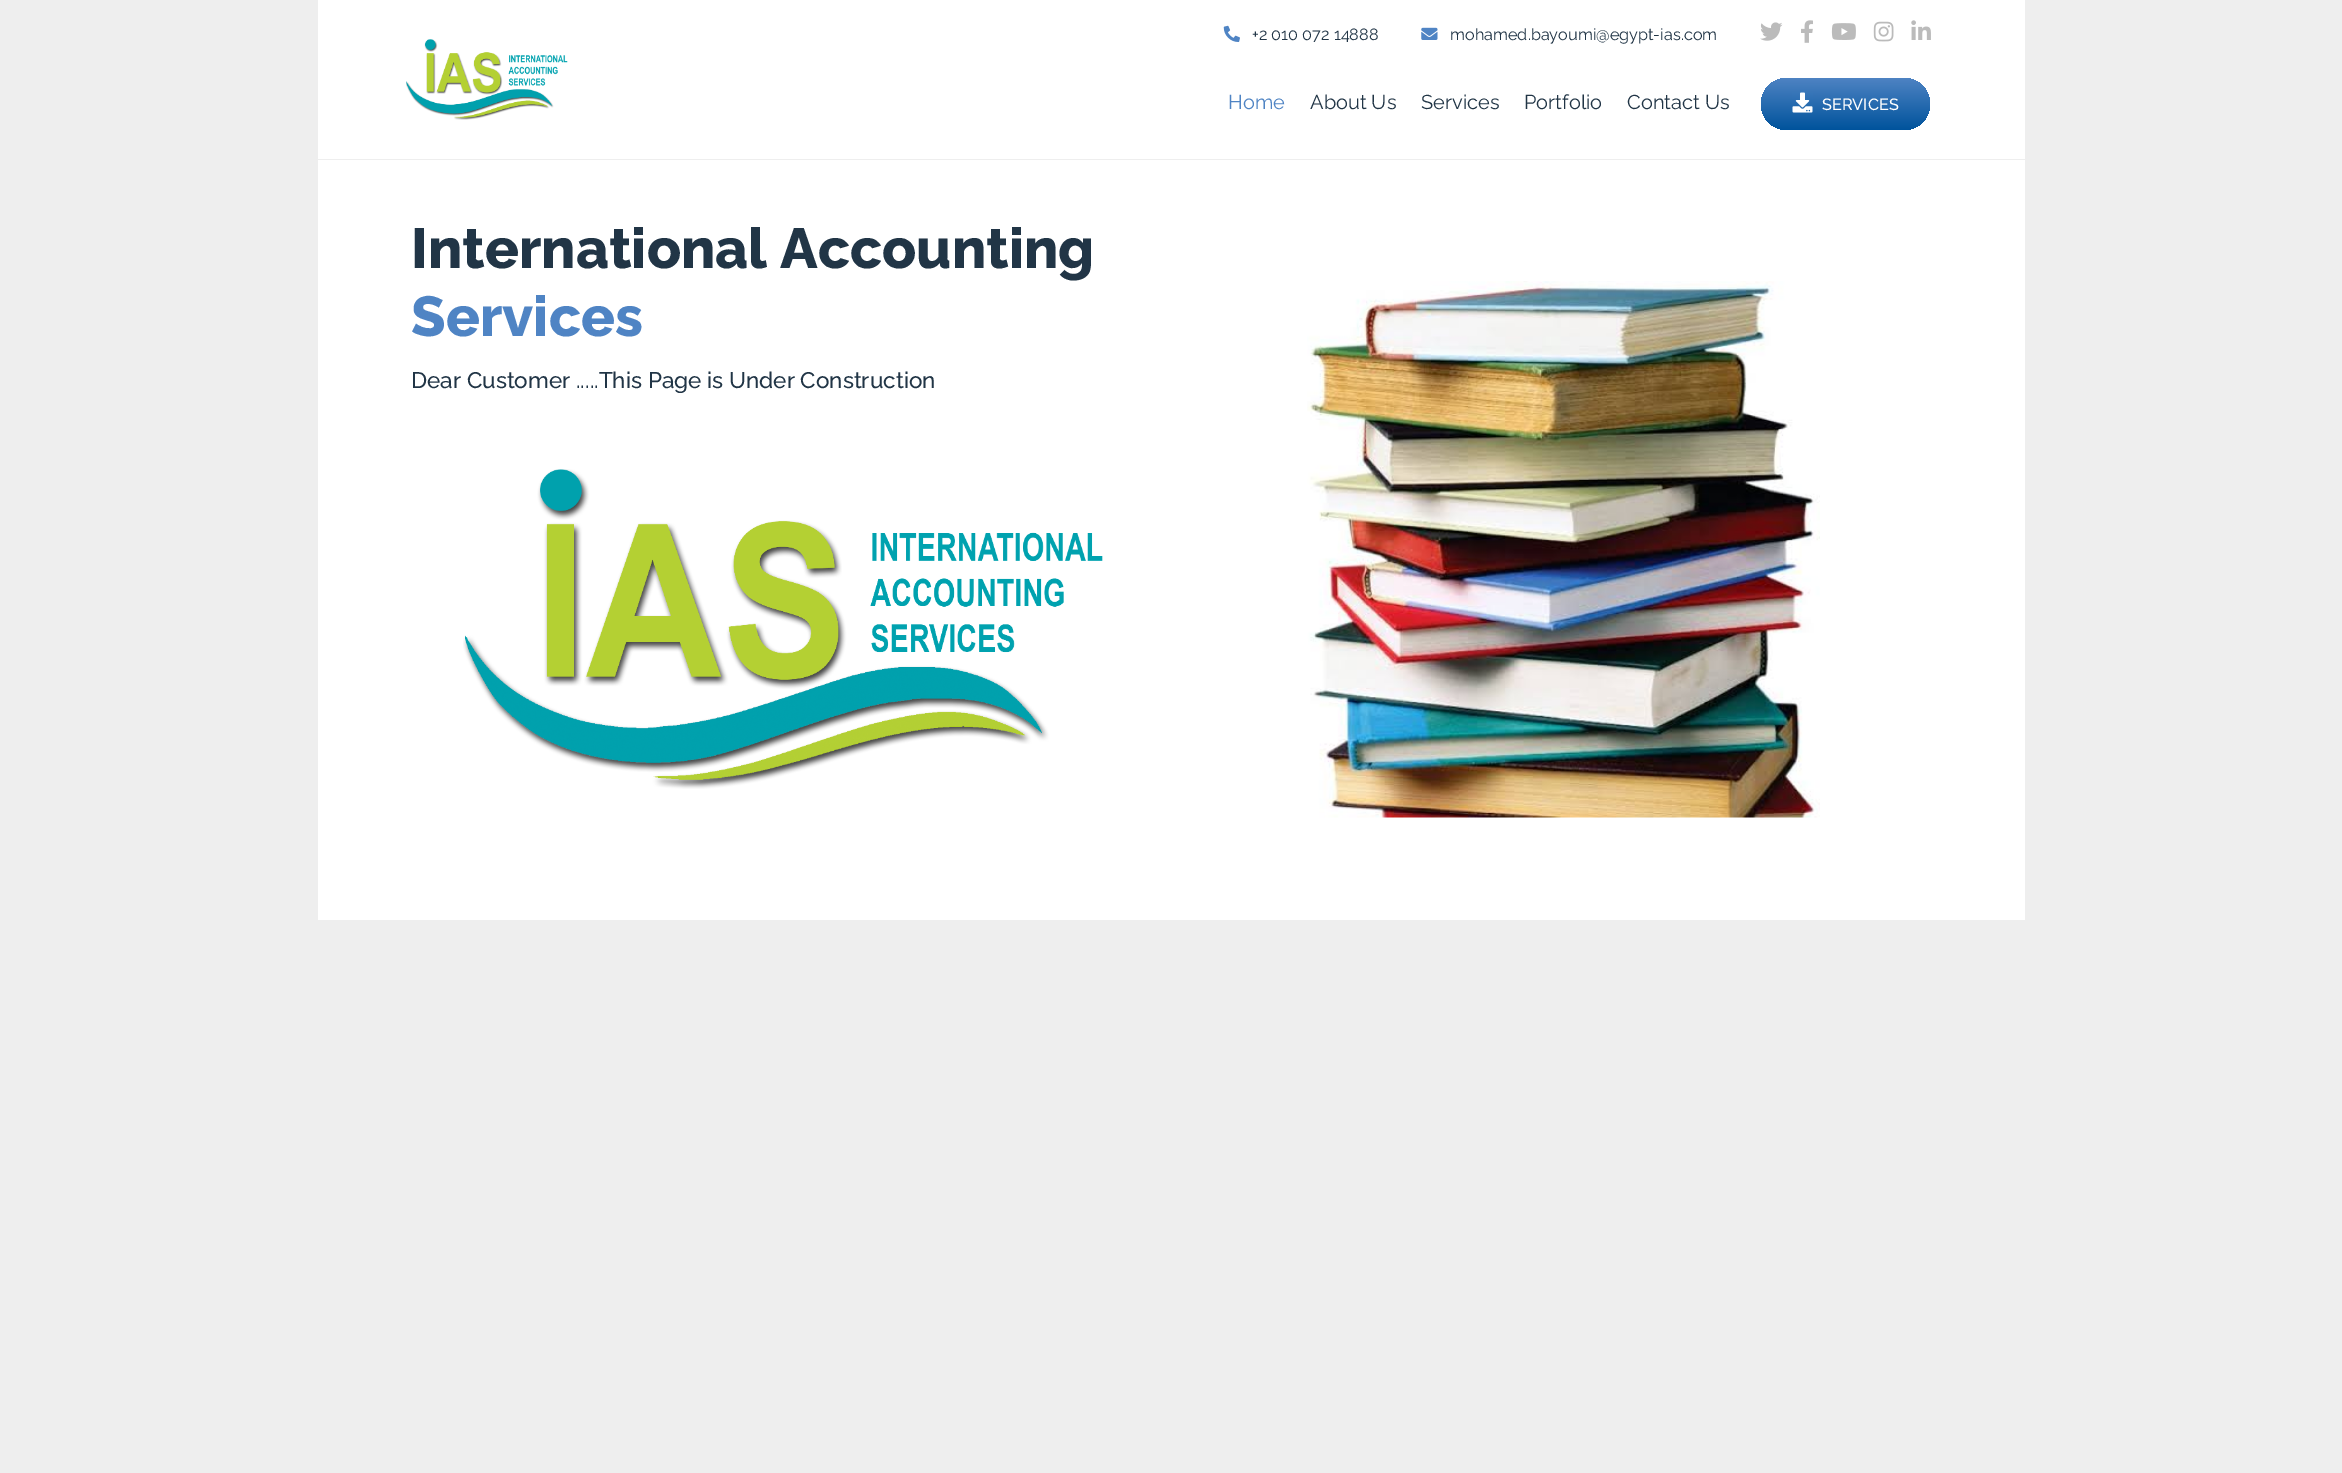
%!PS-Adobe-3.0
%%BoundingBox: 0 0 2342 1473
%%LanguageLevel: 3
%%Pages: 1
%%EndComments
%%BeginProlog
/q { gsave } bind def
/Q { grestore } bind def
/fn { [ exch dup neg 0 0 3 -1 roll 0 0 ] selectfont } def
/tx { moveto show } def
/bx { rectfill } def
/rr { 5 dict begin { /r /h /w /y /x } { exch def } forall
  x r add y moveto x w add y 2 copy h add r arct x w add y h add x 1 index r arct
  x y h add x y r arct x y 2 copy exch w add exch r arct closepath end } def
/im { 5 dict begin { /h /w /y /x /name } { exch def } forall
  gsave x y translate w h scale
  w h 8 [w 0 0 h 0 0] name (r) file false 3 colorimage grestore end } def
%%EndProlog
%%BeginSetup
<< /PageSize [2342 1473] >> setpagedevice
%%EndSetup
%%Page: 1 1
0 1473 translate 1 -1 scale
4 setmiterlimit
0.933 setgray
0 0 2342 1473 bx
1 setgray
318 0 1707 920 bx
0.933 setgray
318 159 1707 1 bx
(image0.raw) 406 39 162 81 im
(image1.raw) 1223 25 17 17 im
/Raleway-Regular 16.25 fn
0.129 0.208 0.275 setrgbcolor
(+2 010 072 14888) 1252 40 tx
(image2.raw) 1421 27 17 13 im
(mohamed.bayoumi@egypt-ias.com) 1450 40 tx
(image3.raw) 1760 22 23 19 im
(image4.raw) 1801 20 12 23 im
(image5.raw) 1831 23 25 17 im
(image6.raw) 1873 21 21 21 im
(image7.raw) 1911 20 20 20 im
/Raleway-Regular 20 fn
0.31 0.518 0.769 setrgbcolor
(Home) 1228 109 tx
0.129 0.208 0.275 setrgbcolor
(About Us) 1310 109 tx
(Services) 1421 109 tx
(Portfolio) 1524 109 tx
(Contact Us) 1627 109 tx
q 1761 78 169 52 26 rr clip newpath
<< /ShadingType 2 /ColorSpace /DeviceRGB /Coords [1846 77 1846 130] /Extend [true true] /Function << /FunctionType 2 /Domain [0 1] /C0 [0.31 0.518 0.769] /C1 [0 0.325 0.612] /N 1 >> >> shfill Q
(image8.raw) 1792 92 21 21 im
/Raleway-Medium 16.25 fn
1 setgray
(SERVICES) 1822 110 tx
/Raleway-ExtraBold 56.25 fn
0.129 0.208 0.275 setrgbcolor
(International Accounting) 411 268 tx
0.31 0.518 0.769 setrgbcolor
(Services) 411 336 tx
/Raleway-Medium 22.5 fn
0.129 0.208 0.275 setrgbcolor
(Dear Customer .....This Page is Under Construction) 411 388 tx
(image9.raw) 463 469 640 320 im
(image10.raw) 1307 281 513 537 im
showpage
%%EOF
